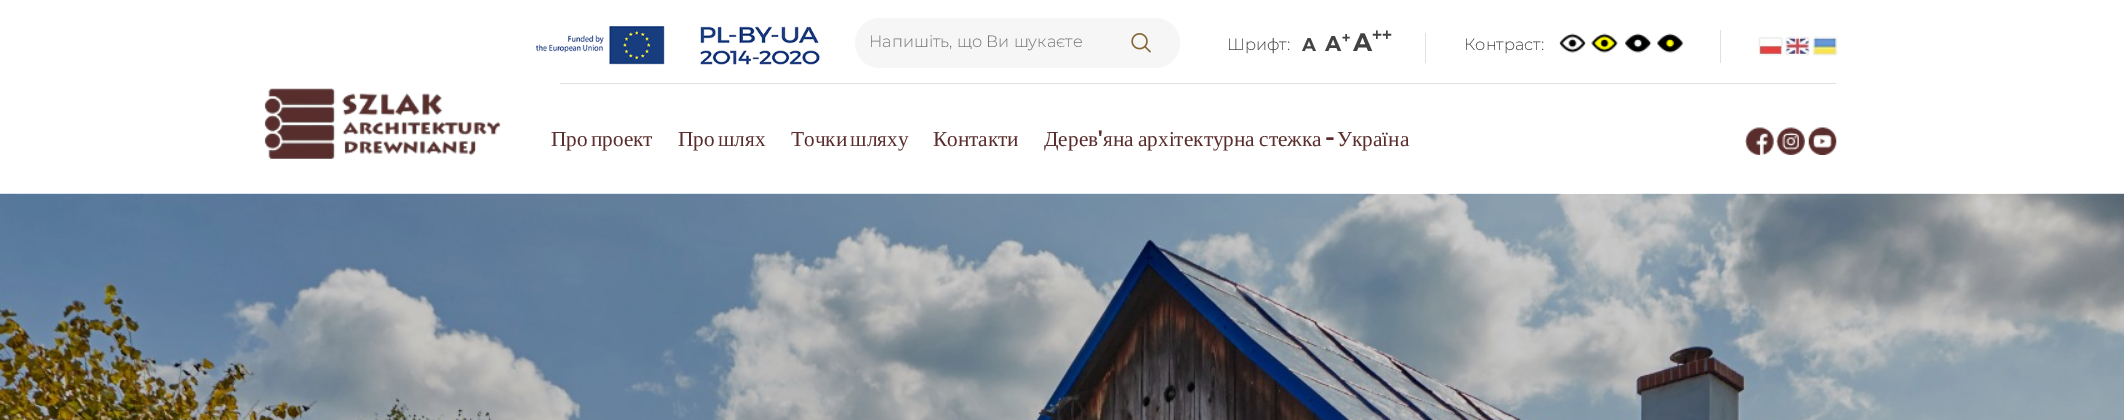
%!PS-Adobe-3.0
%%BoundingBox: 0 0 2124 420
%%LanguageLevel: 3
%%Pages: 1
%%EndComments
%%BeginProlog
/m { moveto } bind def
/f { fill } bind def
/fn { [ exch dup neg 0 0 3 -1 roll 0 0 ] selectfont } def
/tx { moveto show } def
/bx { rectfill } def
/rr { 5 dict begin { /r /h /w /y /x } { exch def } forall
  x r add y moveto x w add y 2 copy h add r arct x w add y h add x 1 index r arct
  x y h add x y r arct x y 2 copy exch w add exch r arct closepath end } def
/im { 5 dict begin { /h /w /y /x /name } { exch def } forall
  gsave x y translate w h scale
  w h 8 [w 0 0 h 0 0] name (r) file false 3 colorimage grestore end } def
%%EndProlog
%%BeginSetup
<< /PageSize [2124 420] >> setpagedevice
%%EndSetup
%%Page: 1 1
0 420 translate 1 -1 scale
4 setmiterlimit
1 setgray
0 0 2124 420 bx
(image0.raw) 536 26 284 39 im
0.965 setgray
855 18 325 50 25 rr f
/Montserrat-Light 16.25 fn
0.459 setgray
(Напишіть, що Ви шукаєте) 869 47 tx
(image1.raw) 1131 33 20 20 im
0.259 setgray
(Шрифт:) 1227 50 tx
/Montserrat-SemiBold 19 fn
(A) 1302 51 tx
/Montserrat-SemiBold 22 fn
(A) 1325 51 tx
/Montserrat-SemiBold 17 fn
(+) 1342 43 tx
/Montserrat-SemiBold 26 fn
(A) 1353 51 tx
/Montserrat-SemiBold 20 fn
(++) 1372 41 tx
0.878 setgray
1425 33 1 30 bx
/Montserrat-Light 16.25 fn
0.259 setgray
(Контраст:) 1464 50 tx
(image2.raw) 1559 33 27 20 im
(image3.raw) 1591 33 27 20 im
(image4.raw) 1625 33 27 20 im
(image5.raw) 1657 33 27 20 im
0.878 setgray
1720 30 1 33 bx
(image6.raw) 1758 36 25 21 im
(image7.raw) 1785 36 25 20 im
(image8.raw) 1812 36 26 20 im
(image9.raw) 264 88 237 71 im
560 83 1276 1 bx
/LiberationSerif-Regular 21.25 fn
0.353 0.18 0.176 setrgbcolor
551 146 m -2 0 32 (Про проект) widthshow
678 146 m -2 0 32 (Про шлях) widthshow
791 146 m -2 0 32 (Точки шляху) widthshow
(Контакти) 933 146 tx
(Дерев) 1044 146 tx
/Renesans-Regular 21.25 fn
(') 1098 146 tx
/LiberationSerif-Regular 21.25 fn
1103 146 m -1 0 32 (яна архітектурна стежка) widthshow
/Renesans-Regular 21.25 fn
(-) 1325 146 tx
/LiberationSerif-Regular 21.25 fn
(Україна) 1337 146 tx
(image10.raw) 1745 127 29 28 im
(image11.raw) 1776 127 29 28 im
(image12.raw) 1808 127 29 28 im
(image13.raw) 0 193 2124 227 im
showpage
%%EOF
